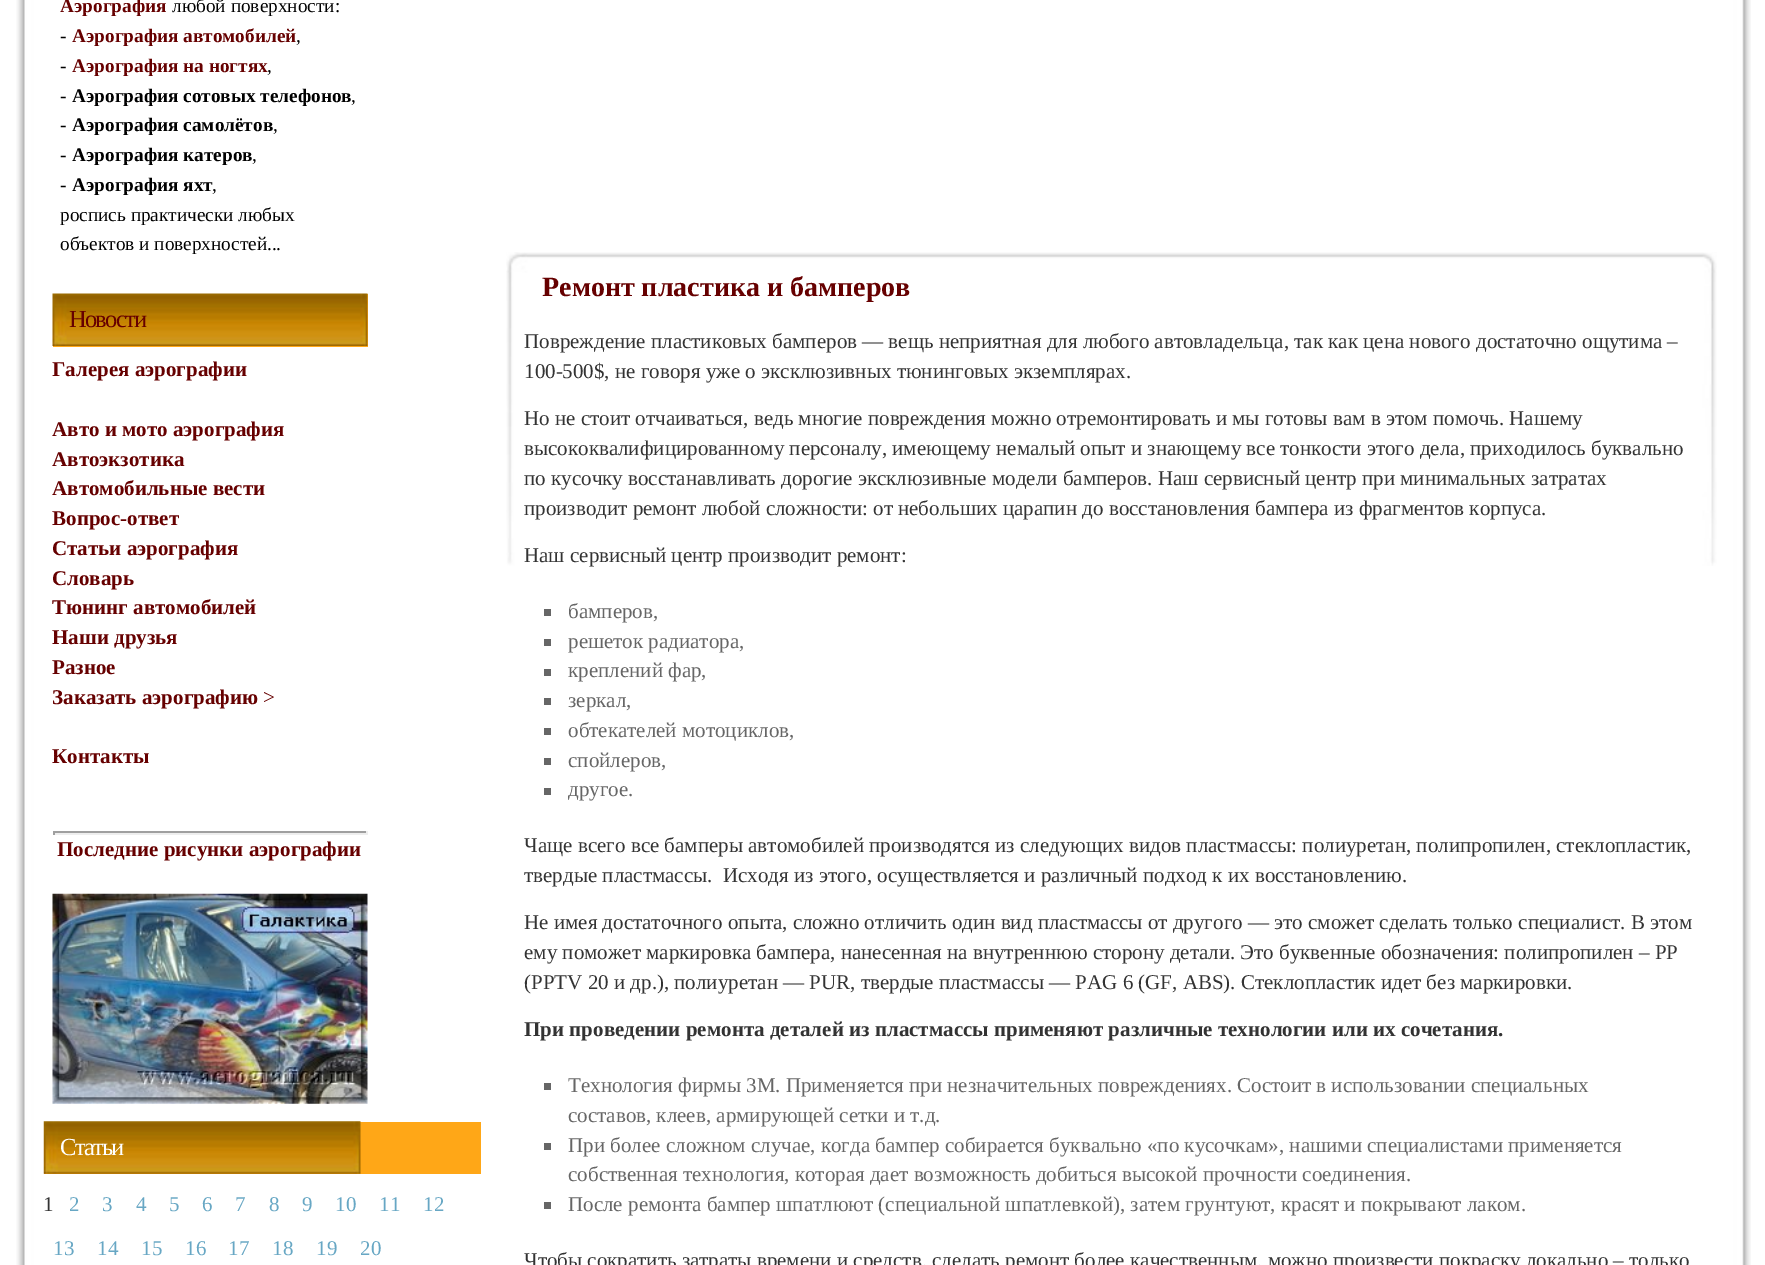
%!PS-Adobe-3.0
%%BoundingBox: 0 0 1765 1265
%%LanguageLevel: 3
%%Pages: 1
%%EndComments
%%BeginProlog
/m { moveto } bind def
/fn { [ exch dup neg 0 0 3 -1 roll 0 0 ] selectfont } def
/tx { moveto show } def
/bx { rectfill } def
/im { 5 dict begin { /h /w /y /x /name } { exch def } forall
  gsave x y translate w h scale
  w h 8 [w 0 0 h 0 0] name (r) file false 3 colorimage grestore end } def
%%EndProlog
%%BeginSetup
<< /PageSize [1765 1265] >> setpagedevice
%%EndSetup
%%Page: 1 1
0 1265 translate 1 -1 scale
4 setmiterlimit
1 setgray
0 0 1765 1265 bx
(image0.raw) 16 0 1735 1265 im
/LiberationSerif-Bold 19.25 fn
0.4 0 0 setrgbcolor
(Аэрография) 60 12 tx
/LiberationSerif-Regular 19.25 fn
0 setgray
(любой поверхности:) 172 12 tx
(-) 60 42 tx
/LiberationSerif-Bold 19.25 fn
0.4 0 0 setrgbcolor
(Аэрография автомобилей) 72 42 tx
/LiberationSerif-Regular 19.25 fn
0 setgray
(,) 296 42 tx
(-) 60 72 tx
/LiberationSerif-Bold 19.25 fn
0.4 0 0 setrgbcolor
(Аэрография на ногтях) 72 72 tx
/LiberationSerif-Regular 19.25 fn
0 setgray
(,) 267 72 tx
(-) 60 102 tx
/LiberationSerif-Bold 19.25 fn
(Аэрография сотовых телефонов) 72 102 tx
/LiberationSerif-Regular 19.25 fn
(,) 351 102 tx
(-) 60 131 tx
/LiberationSerif-Bold 19.25 fn
(Аэрография самолётов) 72 131 tx
/LiberationSerif-Regular 19.25 fn
(,) 273 131 tx
(-) 60 161 tx
/LiberationSerif-Bold 19.25 fn
(Аэрография катеров) 72 161 tx
/LiberationSerif-Regular 19.25 fn
(,) 252 161 tx
(-) 60 191 tx
/LiberationSerif-Bold 19.25 fn
(Аэрография яхт) 72 191 tx
/LiberationSerif-Regular 19.25 fn
(,) 212 191 tx
(роспись практически любых) 60 221 tx
(объектов и поверхностей...) 60 250 tx
1 0.655 0.09 setrgbcolor
53 294 315 53 bx
(image1.raw) 52 293 316 53 im
/LiberationSerif-Regular 24.5 fn
0.4 0 0 setrgbcolor
69 327 m -1.75 0 (Новости) ashow
/LiberationSerif-Bold 21 fn
(Галерея аэрографии) 52 376 tx
(Авто и мото аэрография) 52 436 tx
(Автоэкзотика) 52 466 tx
(Автомобильные вести) 52 495 tx
(Вопрос-ответ) 52 525 tx
(Статьи аэрография) 52 555 tx
(Словарь) 52 585 tx
(Тюнинг автомобилей) 52 614 tx
(Наши друзья) 52 644 tx
(Разное) 52 674 tx
(Заказать аэрографию) 52 704 tx
/LiberationSerif-Regular 21 fn
(>) 263 704 tx
/LiberationSerif-Bold 21 fn
(Контакты) 52 763 tx
0.624 setgray
53 831 315 2 bx
0.933 setgray
366 831 2 4 bx
53 833 315 2 bx
0.624 setgray
53 831 2 4 bx
0.4 0 0 setrgbcolor
(Последние рисунки аэрографии) 57 856 tx
(image2.raw) 52 893 316 211 im
1 0.655 0.09 setrgbcolor
44 1122 437 52 bx
(image3.raw) 43 1121 318 53 im
/LiberationSerif-Regular 24.5 fn
1 setgray
60 1155 m -1.75 0 (Статьи) ashow
/LiberationSerif-Regular 21 fn
0.2 setgray
(1) 43 1211 tx
0.404 0.655 0.769 setrgbcolor
(2) 69 1211 tx
(3) 102 1211 tx
(4) 136 1211 tx
(5) 169 1211 tx
(6) 202 1211 tx
(7) 235 1211 tx
(8) 269 1211 tx
(9) 302 1211 tx
(10) 335 1211 tx
(11) 379 1211 tx
(12) 423 1211 tx
(13) 53 1255 tx
(14) 97 1255 tx
(15) 141 1255 tx
(16) 185 1255 tx
(17) 228 1255 tx
(18) 272 1255 tx
(19) 316 1255 tx
(20) 360 1255 tx
(image4.raw) 506 252 1211 314 im
/LiberationSerif-Bold 28 fn
0.4 0 0 setrgbcolor
(Ремонт пластика и бамперов) 542 296 tx
/LiberationSerif-Regular 21 fn
0.2 setgray
(Повреждение пластиковых бамперов — вещь неприятная для любого автовладельца, так как цена нового достаточно ощутима –) 524 348 tx
(100-500$, не говоря уже о эксклюзивных тюнинговых экземплярах.) 524 378 tx
(Но не стоит отчаиваться, ведь многие повреждения можно отремонтировать и мы готовы вам в этом помочь. Нашему) 524 425 tx
(высококвалифицированному персоналу, имеющему немалый опыт и знающему все тонкости этого дела, приходилось буквально) 524 455 tx
(по кусочку восстанавливать дорогие эксклюзивные модели бамперов. Наш сервисный центр при минимальных затратах) 524 485 tx
(производит ремонт любой сложности: от небольших царапин до восстановления бампера из фрагментов корпуса.) 524 515 tx
(Наш сервисный центр производит ремонт:) 524 562 tx
0.4 setgray
544 609 7 7 bx
(бамперов,) 568 618 tx
544 639 7 7 bx
(решеток радиатора,) 568 648 tx
544 669 7 7 bx
(креплений фар,) 568 677 tx
544 698 7 7 bx
(зеркал,) 568 707 tx
544 728 7 7 bx
(обтекателей мотоциклов,) 568 737 tx
544 758 7 7 bx
(спойлеров,) 568 767 tx
544 788 7 7 bx
(другое.) 568 796 tx
0.2 setgray
(Чаще всего все бамперы автомобилей производятся из следующих видов пластмассы: полиуретан, полипропилен, стеклопластик,) 524 852 tx
(твердые пластмассы.  Исходя из этого, осуществляется и различный подход к их восстановлению.) 524 882 tx
(Не имея достаточного опыта, сложно отличить один вид пластмассы от другого — это сможет сделать только специалист. В этом) 524 929 tx
(ему поможет маркировка бампера, нанесенная на внутреннюю сторону детали. Это буквенные обозначения: полипропилен – PP) 524 959 tx
(\(PPTV 20 и др.\), полиуретан — PUR, твердые пластмассы — PAG 6 \(GF, ABS\). Стеклопластик идет без маркировки.) 524 989 tx
/LiberationSerif-Bold 21 fn
(При проведении ремонта деталей из пластмассы применяют различные технологии или их сочетания.) 524 1036 tx
0.4 setgray
544 1083 7 7 bx
/LiberationSerif-Regular 21 fn
(Технология фирмы 3М. Применяется при незначительных повреждениях. Состоит в использовании специальных) 568 1092 tx
(составов, клеев, армирующей сетки и т.д.) 568 1122 tx
544 1143 7 7 bx
(При более сложном случае, когда бампер собирается буквально «по кусочкам», нашими специалистами применяется) 568 1152 tx
(собственная технология, которая дает возможность добиться высокой прочности соединения.) 568 1181 tx
544 1202 7 7 bx
(После ремонта бампер шпатлюют \(специальной шпатлевкой\), затем грунтуют, красят и покрывают лаком.) 568 1211 tx
0.2 setgray
(Чтобы сократить затраты времени и средств, сделать ремонт более качественным, можно произвести покраску локально – только) 524 1267 tx
showpage
%%EOF
